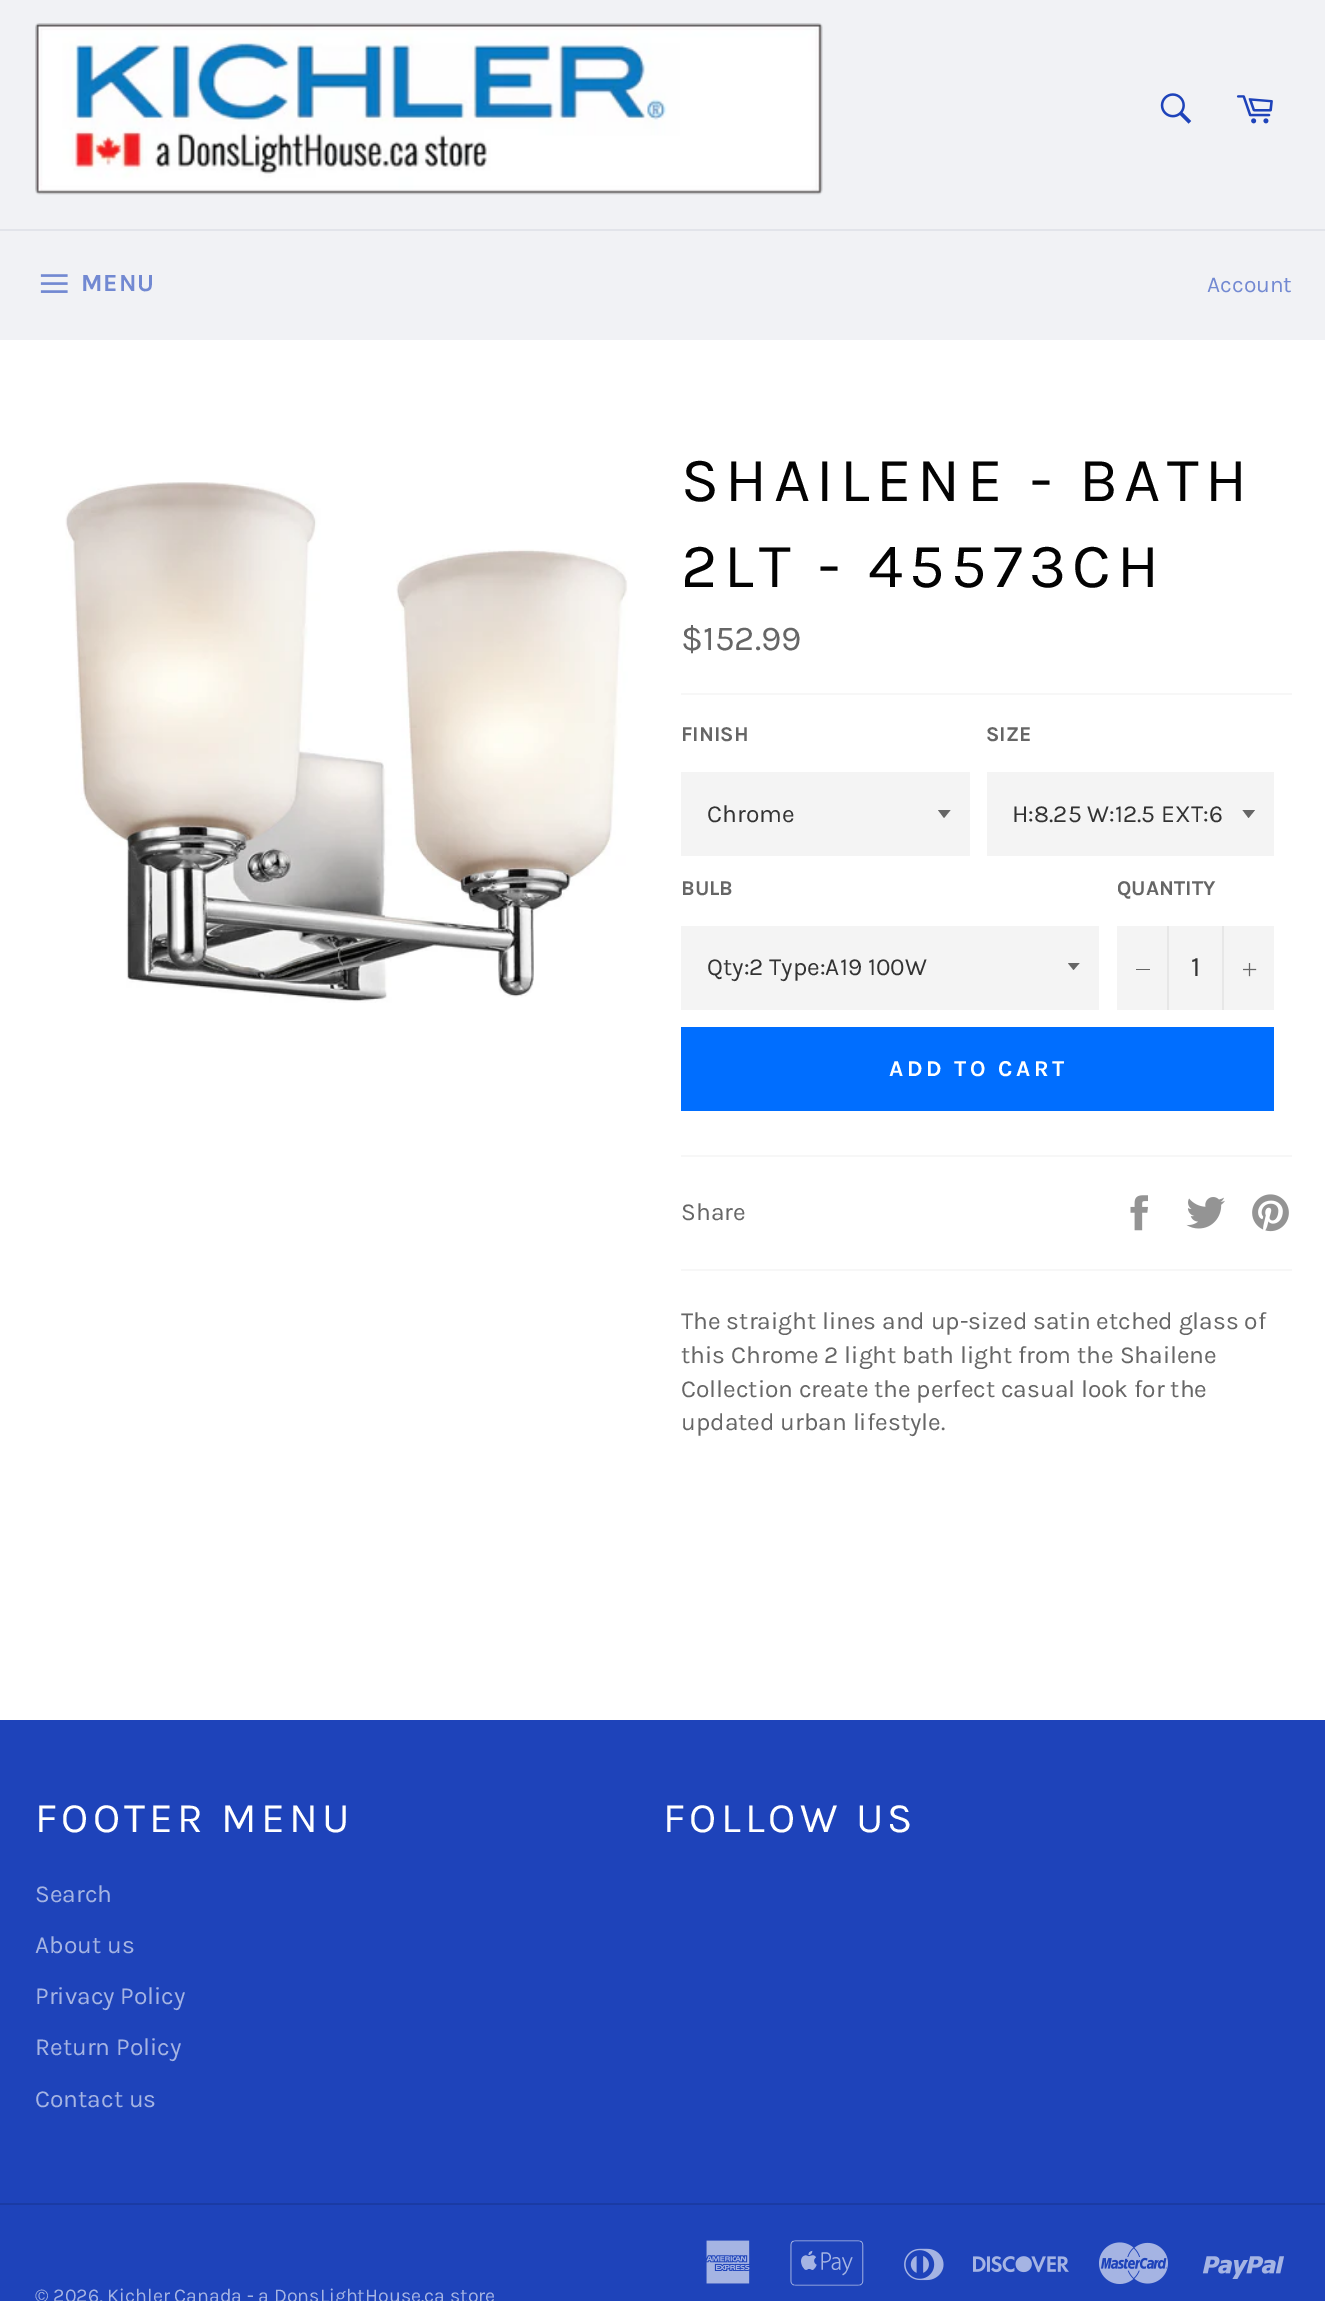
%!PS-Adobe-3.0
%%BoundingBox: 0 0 1325 2301
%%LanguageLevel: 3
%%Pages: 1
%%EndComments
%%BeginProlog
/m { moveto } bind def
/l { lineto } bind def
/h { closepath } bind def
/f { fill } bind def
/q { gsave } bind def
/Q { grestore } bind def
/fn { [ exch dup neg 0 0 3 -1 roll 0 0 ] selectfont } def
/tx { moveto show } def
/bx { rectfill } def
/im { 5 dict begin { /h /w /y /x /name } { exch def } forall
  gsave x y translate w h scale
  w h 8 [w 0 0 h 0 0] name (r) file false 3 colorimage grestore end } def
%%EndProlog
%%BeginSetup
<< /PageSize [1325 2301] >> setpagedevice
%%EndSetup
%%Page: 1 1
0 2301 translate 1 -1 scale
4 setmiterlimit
0.945 0.949 0.961 setrgbcolor
0 0 1325 2301 bx
(image0.raw) 35 23 788 172 im
(image1.raw) 1160 93 32 31 im
(image2.raw) 1236 95 37 29 im
0.886 0.894 0.918 setrgbcolor
0 229 1325 2 bx
(image3.raw) 40 274 28 19 im
/Karla-Bold 24.5 fn
0.447 0.537 0.824 setrgbcolor
81 291 m 1 0 (MENU) ashow
/Karla-Regular 22.75 fn
(Account) 1207 292 tx
1 setgray
0 340 1325 1380 bx
(image4.raw) 65 482 563 521 im
/Karla-Regular 63 fn
0.012 setgray
681 501 m 6.25 0 (SHAILENE - BATH) ashow
681 587 m 6.25 0 (2LT - 45573CH) ashow
/Karla-Regular 35 fn
0.4 setgray
($152.99) 681 650 tx
0.969 setgray
681 693 611 2 bx
/Karla-Bold 21 fn
0.4 setgray
(FINISH) 681 741 tx
0.957 setgray
681 772 289 84 bx
0.4 setgray
938 810 m 944 818 l 950.5 810 l h f
/Karla-Regular 24.5 fn
0.2 setgray
(Chrome) 707 822 tx
/Karla-Bold 21 fn
0.4 setgray
(SIZE) 986 741 tx
0.957 setgray
987 772 287 84 bx
0.4 setgray
1242.5 810 m 1248.5 818 l 1255 810 l h f
/Karla-Regular 24.5 fn
0.2 setgray
(H:8.25 W:12.5 EXT:6) 1012 822 tx
/Karla-Bold 21 fn
0.4 setgray
(BULB) 681 895 tx
0.957 setgray
681 926 418 84 bx
q
1068 963 14 8 rectclip
0.4 setgray
1067.5 962.5 m 1073.5 970 l 1080 962.5 l h f
Q
/Karla-Regular 24.5 fn
0.2 setgray
(Qty:2 Type:A19 100W) 707 975 tx
/Karla-Bold 21 fn
0.4 setgray
(QUANTITY) 1117 895 tx
0.957 setgray
1117 926 157 84 bx
0.906 setgray
1167 926 2 84 bx
0.4 setgray
1136 969 14 1 bx
/Karla-Regular 28 fn
0.2 setgray
(1) 1191 976 tx
0.906 setgray
1222 926 2 84 bx
(image5.raw) 1243 963 14 14 im
0 0.431 1 setrgbcolor
681 1027 593 84 bx
/Karla-Bold 22.75 fn
1 setgray
889 1076 m 3.5 0 (ADD TO CART) ashow
0.969 setgray
681 1155 611 2 bx
/Karla-Regular 24.5 fn
0.4 setgray
(Share) 681 1220 tx
(image6.raw) 1130 1195 18 36 im
(image7.raw) 1186 1197 39 32 im
(image8.raw) 1252 1194 37 38 im
0.969 setgray
681 1269 611 2 bx
0.4 setgray
(The straight lines and up-sized satin etched glass of) 681 1329 tx
(this Chrome 2 light bath light from the Shailene) 681 1363 tx
(Collection create the perfect casual look for the) 681 1397 tx
(updated urban lifestyle.) 681 1430 tx
0.118 0.263 0.729 setrgbcolor
0 1720 1325 581 bx
/Karla-Regular 42 fn
1 setgray
35 1832 m 4.25 0 (FOOTER MENU) ashow
/Karla-Regular 24.5 fn
0.647 0.706 0.89 setrgbcolor
(Search) 35 1902 tx
(About us) 35 1953 tx
(Privacy Policy) 35 2004 tx
(Return Policy) 35 2055 tx
(Contact us) 35 2107 tx
/Karla-Regular 42 fn
1 setgray
663 1832 m 4.25 0 (FOLLOW US) ashow
0.102 0.231 0.643 setrgbcolor
0 2203 1325 2 bx
(image9.raw) 706 2240 44 44 im
(image10.raw) 790 2240 74 46 im
(image11.raw) 904 2248 40 33 im
(image12.raw) 973 2256 96 17 im
(image13.raw) 1099 2242 69 42 im
(image14.raw) 1202 2256 82 23 im
/Karla-Regular 19.6 fn
0.647 0.706 0.89 setrgbcolor
(© 2026, Kichler Canada - a DonsLightHouse.ca store) 35 2302 tx
showpage
%%EOF
